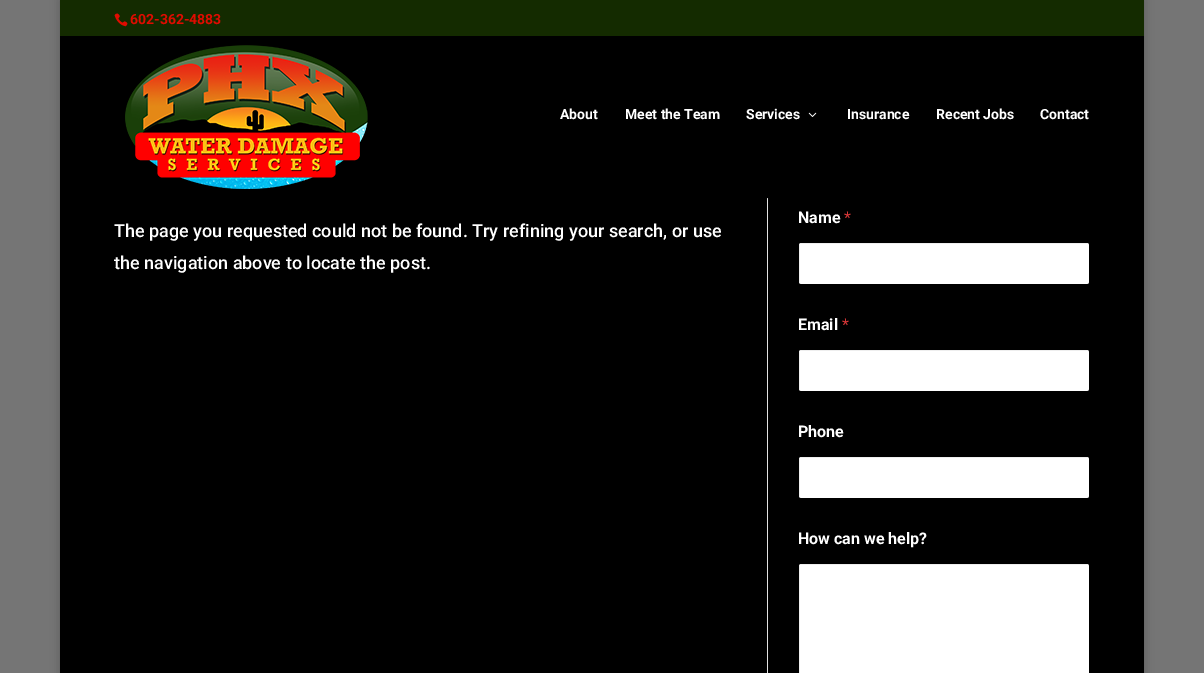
%!PS-Adobe-3.0
%%BoundingBox: 0 0 1204 673
%%LanguageLevel: 3
%%Pages: 1
%%EndComments
%%BeginProlog
/f { fill } bind def
/S { stroke } bind def
/fn { [ exch dup neg 0 0 3 -1 roll 0 0 ] selectfont } def
/tx { moveto show } def
/bx { rectfill } def
/al { dup .setfillconstantalpha .setstrokeconstantalpha } def
/rr { 5 dict begin { /r /h /w /y /x } { exch def } forall
  x r add y moveto x w add y 2 copy h add r arct x w add y h add x 1 index r arct
  x y h add x y r arct x y 2 copy exch w add exch r arct closepath end } def
/sh { 12 dict begin { /a /b /q /h /w /y /x } { exch def } forall gsave /was 0 def
  9 -2 -9 { dup b mul 4 div /e exch def 1 sub .425 mul 2.718 exch exp 1 add a .99 .min exch div /now exch def
    1 1 now sub 1 was sub div sub al /was now def
    w h .min e 2 mul add 0 gt { x e sub y e sub w e 2 mul add h e 2 mul add
      q e add b .6 mul add w h .min 2 div e add .min 0 .max rr fill } if } for grestore end } def
/im { 5 dict begin { /h /w /y /x /name } { exch def } forall
  gsave x y translate w h scale
  w h 8 [w 0 0 h 0 0] name (r) file false 3 colorimage grestore end } def
%%EndProlog
%%BeginSetup
<< /PageSize [1204 673] /PageUsesTransparency true >> setpagedevice
%%EndSetup
%%Page: 1 1
0 .pushpdf14devicefilter
0 673 translate 1 -1 scale
4 setmiterlimit
0.459 setgray
0 0 1204 673 bx
0 setgray
60 0 1084 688 0 5 0.2 sh
0.078 0.169 0 setrgbcolor
60 0 1084 36 bx
(image0.raw) 114 13 14 14 im
/Roboto-Bold 14 fn
0.878 0.043 0 setrgbcolor
(602-362-4883) 130 24 tx
0 setgray
60 36 1084 637 bx
0.886 setgray
767 198 1 475 bx
0.1 al
0 setgray
767 198 1 1 bx
1 al
(image1.raw) 125 45 243 144 im
1 setgray
(About) 560 119 tx
(Meet the Team) 625 119 tx
(Services) 746 119 tx
(image2.raw) 808 112 9 5 im
(Insurance) 847 119 tx
(Recent Jobs) 936 119 tx
(Contact) 1040 119 tx
/Roboto-Medium 18 fn
(The page you requested could not be found. Try refining your search, or use) 114 237 tx
(the navigation above to locate the post.) 114 269 tx
/Roboto-Bold 16 fn
(Name) 798 223 tx
/Roboto-Regular 16 fn
0.839 0.212 0.216 setrgbcolor
(*) 844 223 tx
1 setgray
799 243 290 41 2 rr f
0.25 al
0 setgray
798.5 242.5 291 42 2.5 rr S
/Roboto-Bold 16 fn
1 al
1 setgray
(Email) 798 330 tx
/Roboto-Regular 16 fn
0.839 0.212 0.216 setrgbcolor
(*) 842 330 tx
1 setgray
799 350 290 41 2 rr f
0.25 al
0 setgray
798.5 349.5 291 42 2.5 rr S
/Roboto-Bold 16 fn
1 al
1 setgray
(Phone) 798 437 tx
799 457 290 41 2 rr f
0.25 al
0 setgray
798.5 456.5 291 42 2.5 rr S
1 al
1 setgray
(How can we help?) 798 544 tx
799 564 290 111 2 rr f
0.25 al
0 setgray
798.5 563.5 291 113 2.5 rr S
.poppdf14devicefilter showpage
%%EOF
